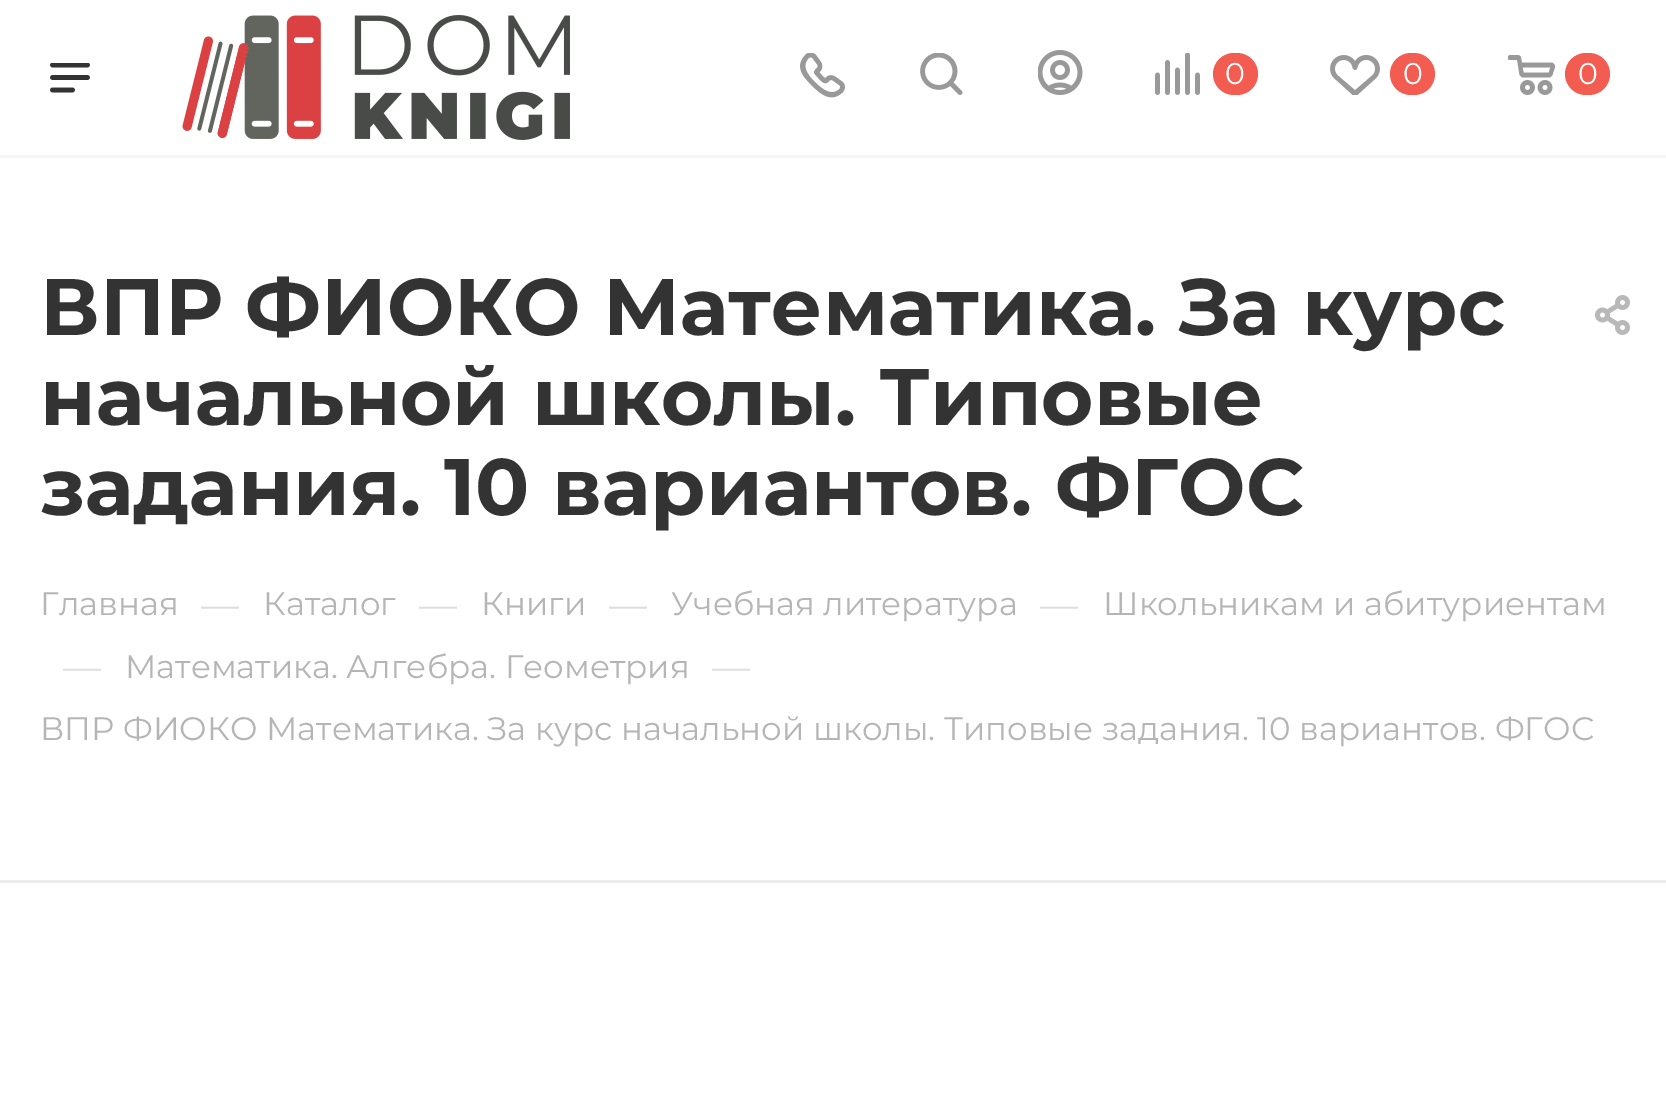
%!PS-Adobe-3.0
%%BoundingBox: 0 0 1666 1114
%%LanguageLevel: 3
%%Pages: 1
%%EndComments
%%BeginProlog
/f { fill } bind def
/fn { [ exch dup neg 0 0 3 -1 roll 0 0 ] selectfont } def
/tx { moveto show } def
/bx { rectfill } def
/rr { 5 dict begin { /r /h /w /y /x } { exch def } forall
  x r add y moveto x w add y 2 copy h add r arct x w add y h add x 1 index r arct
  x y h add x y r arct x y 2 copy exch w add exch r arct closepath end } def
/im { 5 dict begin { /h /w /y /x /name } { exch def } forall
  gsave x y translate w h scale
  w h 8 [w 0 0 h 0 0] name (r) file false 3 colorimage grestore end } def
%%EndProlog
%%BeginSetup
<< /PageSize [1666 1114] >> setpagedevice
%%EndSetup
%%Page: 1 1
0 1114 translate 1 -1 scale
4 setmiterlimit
1 setgray
0 0 1666 1114 bx
0.961 setgray
0 155 1666 3 bx
(image0.raw) 50 63 40 30 im
(image1.raw) 182 15 388 125 im
(image2.raw) 800 53 45 45 im
(image3.raw) 920 53 43 42 im
(image4.raw) 1038 50 45 45 im
(image5.raw) 1155 53 45 42 im
0.953 0.361 0.314 setrgbcolor
1213 53 45 42 21 rr f
/Montserrat-Regular 30 fn
1 setgray
(0) 1225 84 tx
(image6.raw) 1330 55 50 40 im
0.953 0.361 0.314 setrgbcolor
1390 53 45 42 21 rr f
1 setgray
(0) 1403 84 tx
(image7.raw) 1508 55 47 40 im
0.953 0.361 0.314 setrgbcolor
1565 53 45 42 21 rr f
1 setgray
(0) 1578 84 tx
/Montserrat-Bold 80 fn
0.2 setgray
(ВПР ФИОКО Математика. За курс) 40 335 tx
(начальной школы. Типовые) 40 425 tx
(задания. 10 вариантов. ФГОС) 40 515 tx
(image8.raw) 1595 295 35 40 im
/Montserrat-Regular 32.5 fn
0.714 0.71 0.71 setrgbcolor
(Главная) 40 615 tx
/Montserrat-Regular 38 fn
0.867 setgray
(—) 201 618 tx
/Montserrat-Regular 32.5 fn
0.714 0.71 0.71 setrgbcolor
(Каталог) 263 615 tx
/Montserrat-Regular 38 fn
0.867 setgray
(—) 419 618 tx
/Montserrat-Regular 32.5 fn
0.714 0.71 0.71 setrgbcolor
(Книги) 481 615 tx
/Montserrat-Regular 38 fn
0.867 setgray
(—) 609 618 tx
/Montserrat-Regular 32.5 fn
0.714 0.71 0.71 setrgbcolor
(Учебная литература) 671 615 tx
/Montserrat-Regular 38 fn
0.867 setgray
(—) 1040 618 tx
/Montserrat-Regular 32.5 fn
0.714 0.71 0.71 setrgbcolor
(Школьникам и абитуриентам) 1103 615 tx
/Montserrat-Regular 38 fn
0.867 setgray
(—) 63 680 tx
/Montserrat-Regular 32.5 fn
0.714 0.71 0.71 setrgbcolor
(Математика. Алгебра. Геометрия) 125 678 tx
/Montserrat-Regular 38 fn
0.867 setgray
(—) 712 680 tx
/Montserrat-Regular 32.5 fn
0.714 0.71 0.71 setrgbcolor
(ВПР ФИОКО Математика. За курс начальной школы. Типовые задания. 10 вариантов. ФГОС) 40 740 tx
0.925 setgray
0 880 1666 3 bx
showpage
%%EOF
